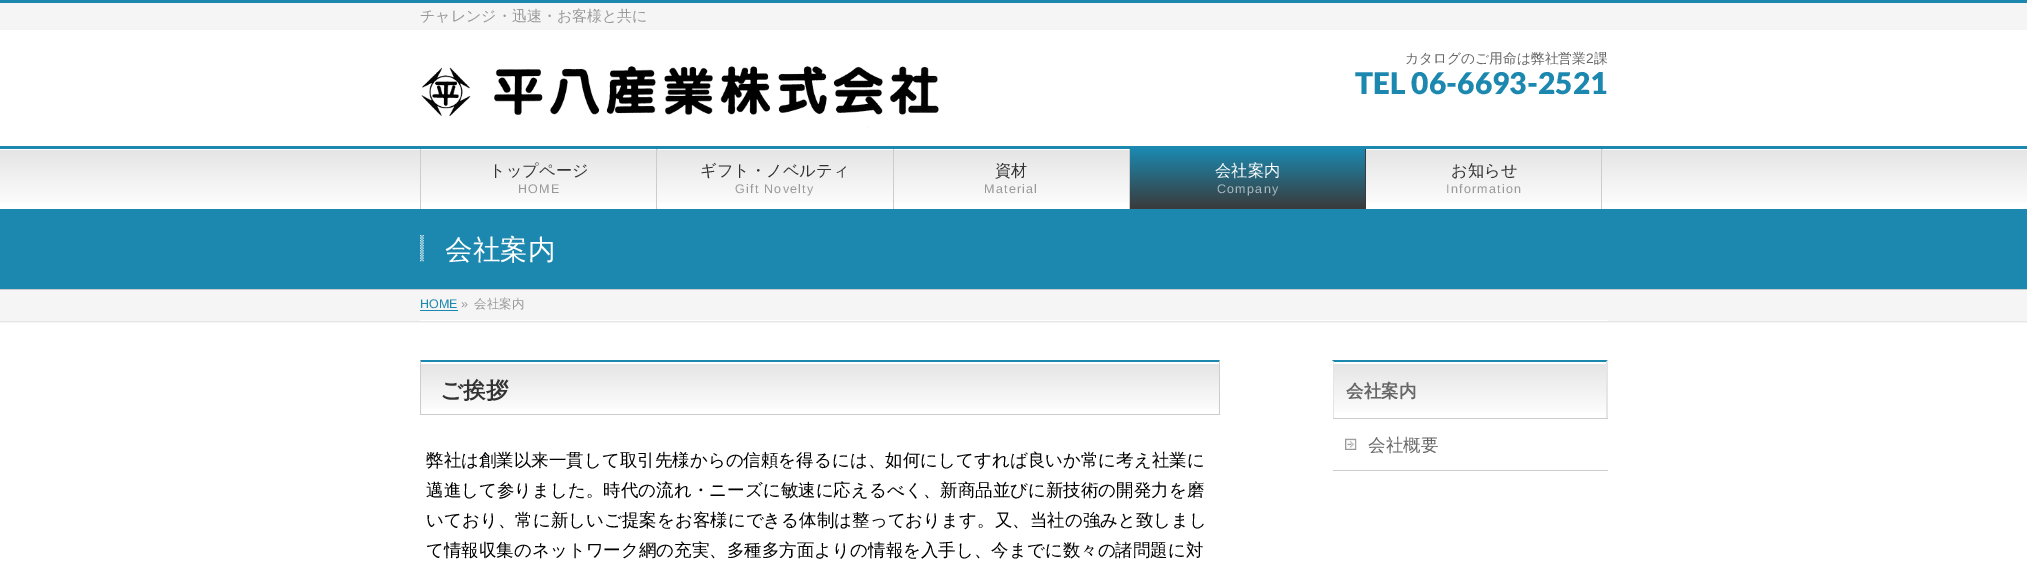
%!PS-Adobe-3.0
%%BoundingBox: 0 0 2027 561
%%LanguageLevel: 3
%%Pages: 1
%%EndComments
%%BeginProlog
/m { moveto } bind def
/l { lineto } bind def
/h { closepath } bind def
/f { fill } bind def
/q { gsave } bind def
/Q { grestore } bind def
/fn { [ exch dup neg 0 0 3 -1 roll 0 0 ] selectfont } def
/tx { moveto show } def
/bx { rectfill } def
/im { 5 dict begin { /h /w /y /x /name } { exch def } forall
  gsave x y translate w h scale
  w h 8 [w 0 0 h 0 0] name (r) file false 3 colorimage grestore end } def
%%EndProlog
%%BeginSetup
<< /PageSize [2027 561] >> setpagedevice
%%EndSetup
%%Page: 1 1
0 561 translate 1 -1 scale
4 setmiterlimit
1 setgray
0 0 2027 561 bx
0.961 setgray
0 3 2027 27 bx
0.11 0.533 0.686 setrgbcolor
0 0 2027 3 bx
/WenQuanYiZenHei-Medium 15 fn
0.6 setgray
(チャレンジ・迅速・お客様と共に) 420 21 tx
(image0.raw) 421 66 518 62 im
/WenQuanYiZenHei-Medium 13.75 fn
0.4 setgray
(カタログのご用命は弊社営業) 1405 63 tx
/LiberationSans-Regular 13.75 fn
(2) 1586 63 tx
/WenQuanYiZenHei-Medium 13.75 fn
(課) 1594 63 tx
/Lato-Black 30 fn
0.11 0.533 0.686 setrgbcolor
(TEL 06-6693-2521) 1355 94 tx
q 0 150 m 2027 150 l 2027 203 l 0 203 l h clip newpath
<< /ShadingType 2 /ColorSpace /DeviceRGB /Coords [1014 149 1014 209] /Extend [true true] /Function << /FunctionType 2 /Domain [0 1] /C0 [0.898 0.898 0.898] /C1 [1 1 1] /N 1 >> >> shfill Q
0 146 2027 3 bx
0.8 setgray
420 149 1 60 bx
q 421 149 m 658 149 l 658 150 l 421 150 l h clip newpath
<< /ShadingType 2 /ColorSpace /DeviceRGB /Coords [421 149 421 209] /Extend [true true] /Function << /FunctionType 2 /Domain [0 1] /C0 [0.898 0.898 0.898] /C1 [1 1 1] /N 1 >> >> shfill Q
1 setgray
421 149 235 1 bx
0.8 setgray
656 149 1 60 bx
/WenQuanYiZenHei-Medium 16.25 fn
0.2 setgray
(トップページ) 489 176 tx
/LiberationSans-Regular 12.5 fn
0.6 setgray
518 193 m 1.25 0 (HOME) ashow
0.8 setgray
893 149 1 60 bx
/WenQuanYiZenHei-Medium 16.25 fn
0.2 setgray
(ギフト・ノベルティ) 700 176 tx
/LiberationSans-Regular 12.5 fn
0.6 setgray
735 193 m 1.25 0 (Gift Novelty) ashow
0.8 setgray
1129 149 1 60 bx
/WenQuanYiZenHei-Medium 16.25 fn
0.2 setgray
(資材) 995 176 tx
/LiberationSans-Regular 12.5 fn
0.6 setgray
984 193 m 1.25 0 (Material) ashow
q 1130 149 m 1365 149 l 1365 209 l 1130 209 l h clip newpath
<< /ShadingType 2 /ColorSpace /DeviceRGB /Coords [1248 149 1248 209] /Extend [true true] /Function << /FunctionType 2 /Domain [0 1] /C0 [0.11 0.533 0.686] /C1 [0.227 0.227 0.227] /N 1 >> >> shfill Q
0.227 setgray
1365 149 1 60 bx
/WenQuanYiZenHei-Medium 16.25 fn
1 setgray
(会社案内) 1215 176 tx
/LiberationSans-Regular 12.5 fn
0.675 0.729 0.749 setrgbcolor
1217 193 m 1.25 0 (Company) ashow
q 1366 149 m 1603 149 l 1603 150 l 1366 150 l h clip newpath
<< /ShadingType 2 /ColorSpace /DeviceRGB /Coords [1366 149 1366 209] /Extend [true true] /Function << /FunctionType 2 /Domain [0 1] /C0 [0.898 0.898 0.898] /C1 [1 1 1] /N 1 >> >> shfill Q
1 setgray
1366 149 235 1 bx
0.8 setgray
1601 149 1 60 bx
/WenQuanYiZenHei-Medium 16.25 fn
0.2 setgray
(お知らせ) 1451 176 tx
/LiberationSans-Regular 12.5 fn
0.6 setgray
1446 193 m 1.25 0 (Information) ashow
0.11 0.533 0.686 setrgbcolor
0 209 2027 80 bx
0.8 setgray
0 289 2027 1 bx
(image1.raw) 420 235 4 27 im
/WenQuanYiZenHei-Medium 27.5 fn
1 setgray
(会社案内) 445 259 tx
0.961 setgray
0 290 2027 33 bx
0.898 setgray
0 321 2027 1 bx
1 setgray
420 320 1188 1 bx
/LiberationSans-Regular 12.5 fn
0.11 0.533 0.686 setrgbcolor
(HOME) 420 308 tx
420 310 38 1 bx
0.6 setgray
(») 461 308 tx
/WenQuanYiZenHei-Medium 12.5 fn
(会社案内) 474 308 tx
q 421 364 m 1219 364 l 1219 409 l 421 409 l h clip newpath
<< /ShadingType 2 /ColorSpace /DeviceRGB /Coords [421 363 421 414] /Extend [true true] /Function << /FunctionType 2 /Domain [0 1] /C0 [0.898 0.898 0.898] /C1 [1 1 1] /N 1 >> >> shfill Q
0.11 0.533 0.686 setrgbcolor
420 360 m 1220 360 l 1219 362 l 421 362 l h f
0.8 setgray
1220 360 m 1220 415 l 1219 414 l 1219 362 l h f
420 414 800 1 bx
420 415 m 420 360 l 421 362 l 421 414 l h f
/WenQuanYiZenHei-Bold 22.5 fn
0.2 setgray
(ご挨拶) 440 398 tx
/WenQuanYiZenHei-Medium 17.5 fn
0 setgray
(弊社は創業以来一貫して取引先様からの信頼を得るには、如何にしてすれば良いか常に考え社業に) 426 466 tx
(邁進して参りました。時代の流れ・ニーズに敏速に応えるべく、新商品並びに新技術の開発力を磨) 426 496 tx
(いており、常に新しいご提案をお客様にできる体制は整っております。又、当社の強みと致しまし) 426 526 tx
(て情報収集のネットワーク網の充実、多種多方面よりの情報を入手し、今までに数々の諸問題に対) 426 556 tx
q 1334 364 m 1606 364 l 1606 413 l 1334 413 l h clip newpath
<< /ShadingType 2 /ColorSpace /DeviceRGB /Coords [1334 363 1334 418] /Extend [true true] /Function << /FunctionType 2 /Domain [0 1] /C0 [0.898 0.898 0.898] /C1 [1 1 1] /N 1 >> >> shfill Q
0.11 0.533 0.686 setrgbcolor
1332 360 m 1608 360 l 1606 362 l 1334 362 l h f
0.898 setgray
1608 360 m 1608 419 l 1606 418 l 1606 362 l h f
0.8 setgray
1333 418 275 1 bx
q
1333 360 275 174 rectclip
0.898 setgray
1332 419 m 1332 360 l 1334 362 l 1334 418 l h f
Q
/WenQuanYiZenHei-Bold 17.5 fn
0.4 setgray
(会社案内) 1346 397 tx
0.8 setgray
1333 470 275 1 bx
(image2.raw) 1345 438 12 12 im
/WenQuanYiZenHei-Medium 17.5 fn
0.4 setgray
(会社概要) 1368 451 tx
showpage
%%EOF
